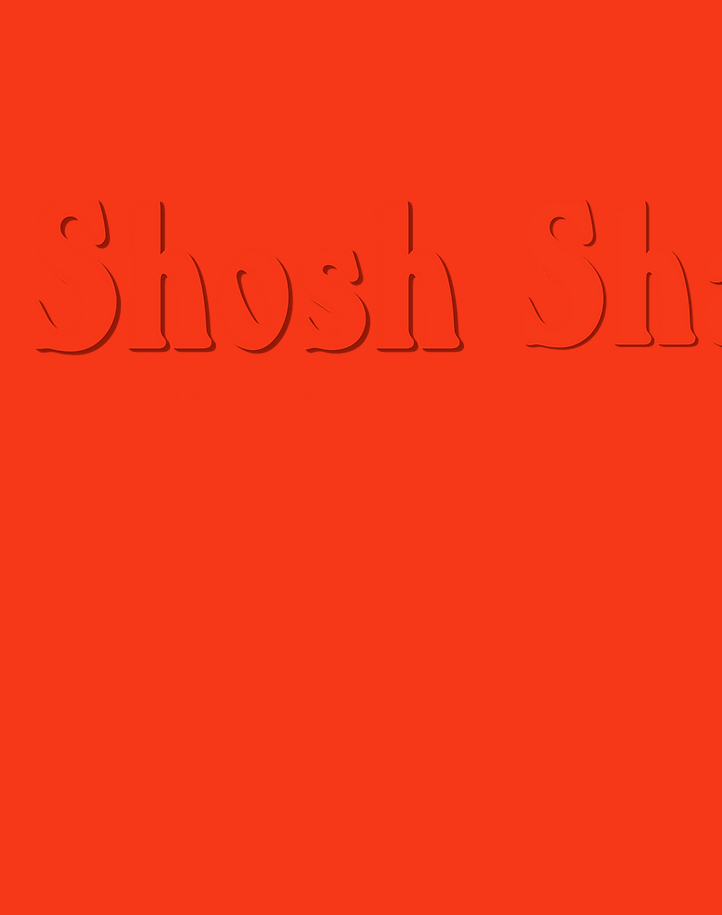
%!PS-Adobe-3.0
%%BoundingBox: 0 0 722 915
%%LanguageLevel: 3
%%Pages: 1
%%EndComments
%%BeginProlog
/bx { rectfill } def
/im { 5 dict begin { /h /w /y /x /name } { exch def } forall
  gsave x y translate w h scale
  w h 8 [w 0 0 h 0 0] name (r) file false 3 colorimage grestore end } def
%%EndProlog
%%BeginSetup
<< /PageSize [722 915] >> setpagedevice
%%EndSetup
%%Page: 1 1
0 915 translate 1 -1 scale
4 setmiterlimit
0.965 0.22 0.094 setrgbcolor
0 0 722 915 bx
(image0.raw) 36 199 428 200 im
(image1.raw) 525 200 197 150 im
showpage
%%EOF
